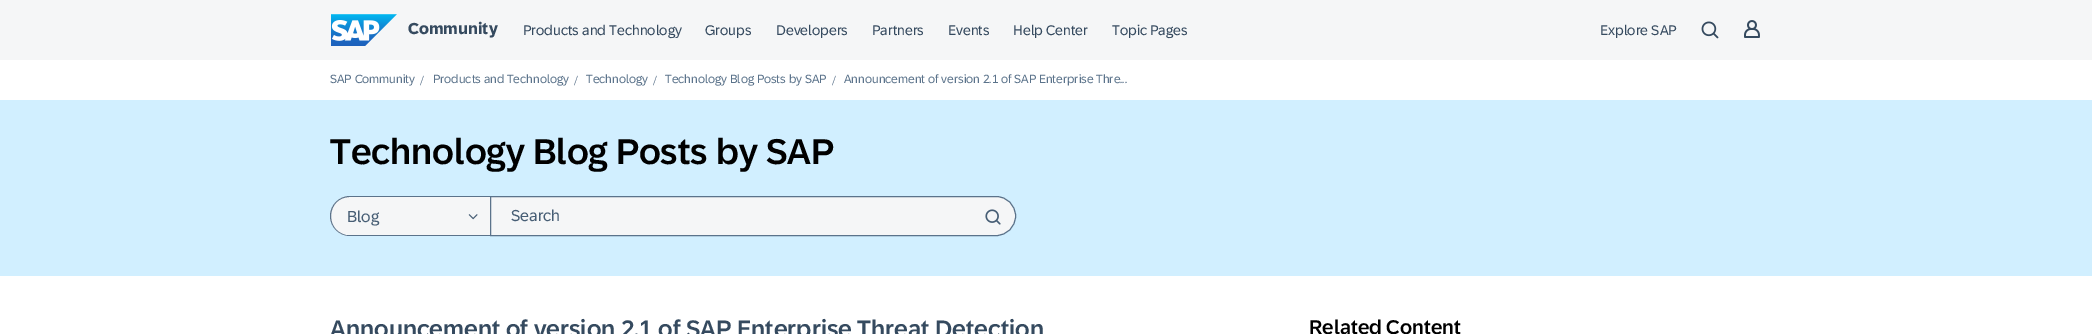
%!PS-Adobe-3.0
%%BoundingBox: 0 0 2092 334
%%LanguageLevel: 3
%%Pages: 1
%%EndComments
%%BeginProlog
/m { moveto } bind def
/l { lineto } bind def
/c { curveto } bind def
/h { closepath } bind def
/f { fill } bind def
/S { stroke } bind def
/q { gsave } bind def
/Q { grestore } bind def
/fn { [ exch dup neg 0 0 3 -1 roll 0 0 ] selectfont } def
/tx { moveto show } def
/bx { rectfill } def
/im { 5 dict begin { /h /w /y /x /name } { exch def } forall
  gsave x y translate w h scale
  w h 8 [w 0 0 h 0 0] name (r) file false 3 colorimage grestore end } def
%%EndProlog
%%BeginSetup
<< /PageSize [2092 334] >> setpagedevice
%%EndSetup
%%Page: 1 1
0 334 translate 1 -1 scale
4 setmiterlimit
1 setgray
0 0 2092 334 bx
0.961 0.965 0.969 setrgbcolor
0 0 2092 60 bx
(image0.raw) 331 14 66 32 im
/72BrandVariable-Bold 16 fn
0.208 0.29 0.373 setrgbcolor
(Community) 408 34 tx
/72BrandVariable-Regular 14 fn
(Products and Technology) 523 35 tx
(Groups) 705 35 tx
(Developers) 776 35 tx
(Partners) 872 35 tx
(Events) 948 35 tx
(Help Center) 1013 35 tx
(Topic Pages) 1112 35 tx
(Explore SAP) 1600 35 tx
(image1.raw) 1701 21 18 18 im
(image2.raw) 1744 20 16 18 im
/72BrandVariable-Regular 12 fn
0.357 0.451 0.545 setrgbcolor
(SAP Community) 330 83 tx
/LiberationSerif-Regular 14 fn
(/) 420 85 tx
/72BrandVariable-Regular 12 fn
(Products and Technology) 433 83 tx
/LiberationSerif-Regular 14 fn
(/) 574 85 tx
/72BrandVariable-Regular 12 fn
(Technology) 586 83 tx
/LiberationSerif-Regular 14 fn
(/) 653 85 tx
/72BrandVariable-Regular 12 fn
(Technology Blog Posts by SAP) 665 83 tx
/LiberationSerif-Regular 14 fn
(/) 832 85 tx
/72BrandVariable-Regular 12 fn
(Announcement of version 2.1 of SAP Enterprise Thre...) 844 83 tx
0.82 0.937 1 setrgbcolor
0 100 2092 176 bx
/72BrandVariable-Medium 36 fn
0 setgray
(Technology Blog Posts by SAP) 330 164 tx
0.961 0.965 0.969 setrgbcolor
350 196 m 490 196 l 490 236 l 350 236 l 339 236 330 227 330 216 c 330 205 339 196 350 196 c h f
0.357 0.451 0.545 setrgbcolor
350 196 m 490 196 l 490 236 l 350 236 l 339 236 330 227 330 216 c 330 205 339 196 350 196 c h 350 197 m 490 197 l 490 235 l 346 235 l 324 230 327 197 350 197 c h eofill
/72BrandVariable-Regular 16 fn
0.278 0.369 0.459 setrgbcolor
(Blog) 347 222 tx
(image3.raw) 468 214 10 6 im
0.961 0.965 0.969 setrgbcolor
490.5 196.5 m 996 196.5 l 1007 196.5 1015.5 205 1015.5 216 c 1015.5 227 1007 235.5 996 235.5 c 490.5 235.5 l h q f Q
0.357 0.451 0.545 setrgbcolor
S
0.278 0.369 0.459 setrgbcolor
(Search) 511 221 tx
(image4.raw) 985 209 16 16 im
/72BrandVariable-Medium 24 fn
0.208 0.29 0.373 setrgbcolor
(Announcement of version 2.1 of SAP Enterprise Threat Detection) 330 337 tx
/72BrandVariable-Medium 20 fn
0 setgray
(Related Content) 1309 334 tx
showpage
%%EOF
